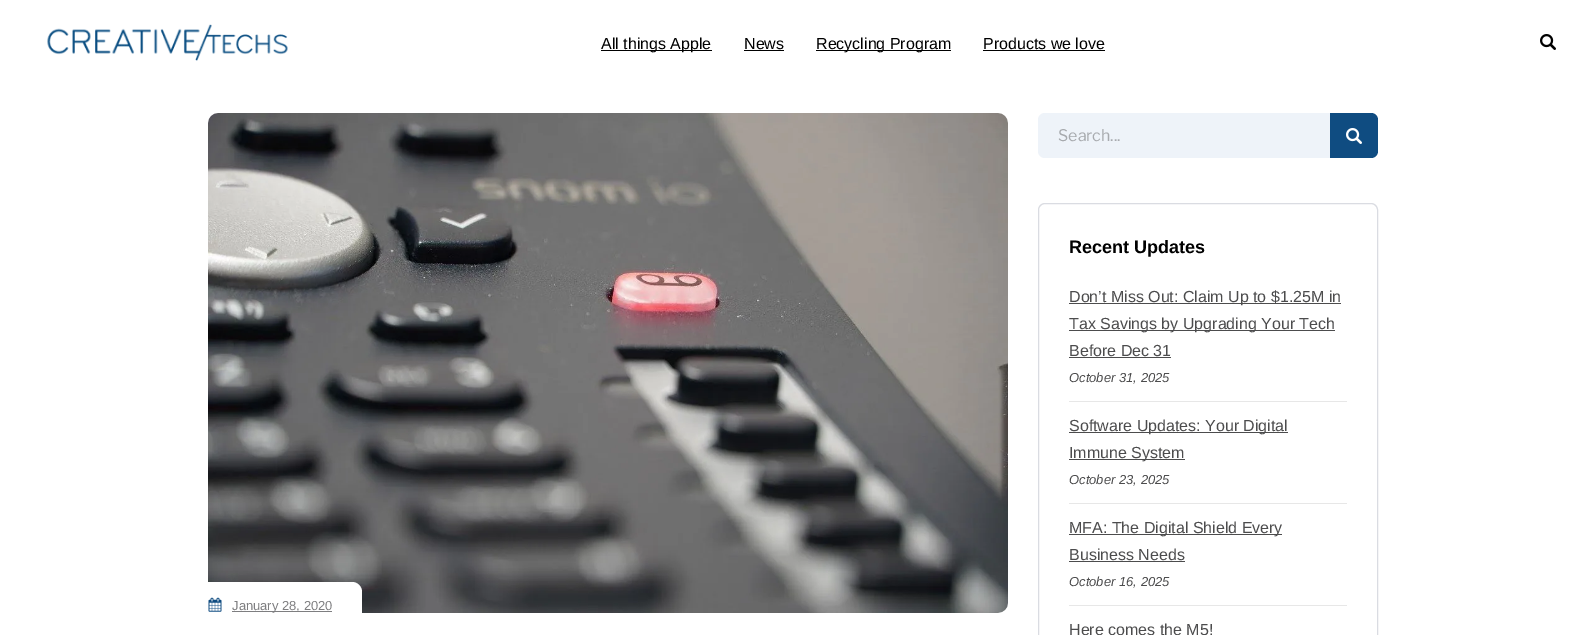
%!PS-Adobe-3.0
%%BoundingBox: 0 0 1586 635
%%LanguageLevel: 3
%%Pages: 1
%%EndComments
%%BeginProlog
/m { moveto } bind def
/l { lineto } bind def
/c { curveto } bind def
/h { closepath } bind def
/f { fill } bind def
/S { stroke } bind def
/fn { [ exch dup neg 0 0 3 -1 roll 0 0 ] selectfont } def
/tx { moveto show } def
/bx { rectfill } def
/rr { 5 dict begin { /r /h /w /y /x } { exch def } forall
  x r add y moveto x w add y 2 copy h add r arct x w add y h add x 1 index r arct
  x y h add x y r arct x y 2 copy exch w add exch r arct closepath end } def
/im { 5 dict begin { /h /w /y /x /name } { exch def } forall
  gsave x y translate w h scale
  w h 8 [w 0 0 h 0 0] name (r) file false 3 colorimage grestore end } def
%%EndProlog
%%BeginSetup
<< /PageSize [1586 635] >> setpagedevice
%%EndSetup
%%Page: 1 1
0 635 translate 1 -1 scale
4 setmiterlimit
1 setgray
0 0 1586 635 bx
(image0.raw) 47 24 241 37 im
0 setgray
601 50 111 1 bx
/LiberationSans-Regular 16 fn
(All things Apple) 601 49 tx
(News) 744 49 tx
744 50 40 1 bx
816 50 135 1 bx
(Recycling Program) 816 49 tx
(Products we love) 983 49 tx
983 50 122 1 bx
(image1.raw) 1540 34 16 16 im
(image2.raw) 208 113 800 500 im
1 setgray
208 582 m 352 582 l 357.5 582 362 586.5 362 592 c 362 613 l 208 613 l h f
(image3.raw) 208 597 14 15 im
0.494 0.494 0.502 setrgbcolor
232 611 100 1 bx
/LiberationSans-Regular 13 fn
(January 28, 2020) 232 610 tx
0.933 0.953 0.976 setrgbcolor
1038 113 340 45 7 rr f
/LibreFranklin-Regular 16 fn
0.655 0.667 0.682 setrgbcolor
(Search...) 1058 141 tx
0.059 0.298 0.506 setrgbcolor
1330 113 m 1371 113 l 1375 113 1378 116 1378 120 c 1378 151 l 1378 155 1375 158 1371 158 c 1330 158 l h f
(image4.raw) 1346 128 16 16 im
0.855 0.863 0.886 setrgbcolor
1038.5 203.5 339 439 6.5 rr S
/LiberationSans-Bold 18 fn
0 setgray
(Recent Updates) 1069 253 tx
0.906 setgray
1069 401 278 1 bx
0.298 0.298 0.302 setrgbcolor
1069 303 272 1 bx
/LiberationSans-Regular 16 fn
(Don’t Miss Out: Claim Up to $1.25M in) 1069 302 tx
1069 330 266 1 bx
(Tax Savings by Upgrading Your Tech) 1069 329 tx
(Before Dec 31) 1069 356 tx
1069 357 102 1 bx
/LiberationSans-Italic 13 fn
(October 31, 2025) 1069 382 tx
0.906 setgray
1069 503 278 1 bx
0.298 0.298 0.302 setrgbcolor
1069 432 219 1 bx
/LiberationSans-Regular 16 fn
(Software Updates: Your Digital) 1069 431 tx
1069 459 116 1 bx
(Immune System) 1069 458 tx
/LiberationSans-Italic 13 fn
(October 23, 2025) 1069 484 tx
0.906 setgray
1069 605 278 1 bx
0.298 0.298 0.302 setrgbcolor
1069 534 213 1 bx
/LiberationSans-Regular 16 fn
(MFA: The Digital Shield Every) 1069 533 tx
(Business Needs) 1069 560 tx
1069 561 116 1 bx
/LiberationSans-Italic 13 fn
(October 16, 2025) 1069 586 tx
/LiberationSans-Regular 16 fn
(Here comes the M5!) 1069 635 tx
showpage
%%EOF
